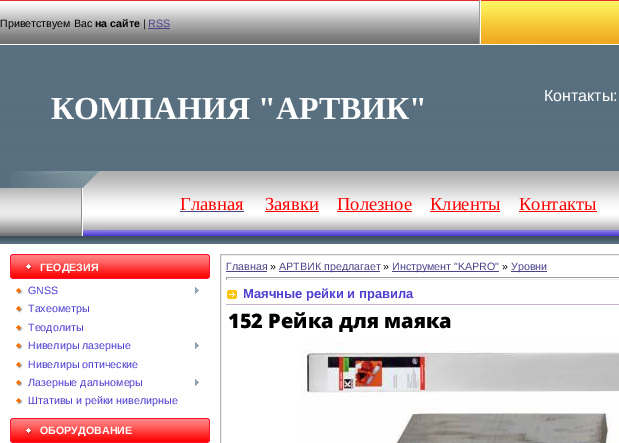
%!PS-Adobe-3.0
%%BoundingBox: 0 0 619 443
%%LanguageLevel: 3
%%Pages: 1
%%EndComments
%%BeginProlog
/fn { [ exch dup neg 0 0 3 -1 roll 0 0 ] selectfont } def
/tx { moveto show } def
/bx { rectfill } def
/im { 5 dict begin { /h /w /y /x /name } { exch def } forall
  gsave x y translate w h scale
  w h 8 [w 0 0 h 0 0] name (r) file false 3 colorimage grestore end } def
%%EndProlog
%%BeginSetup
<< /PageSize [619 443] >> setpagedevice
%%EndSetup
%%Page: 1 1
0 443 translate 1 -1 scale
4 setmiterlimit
1 setgray
0 0 619 443 bx
(image0.raw) 0 45 619 199 im
(image1.raw) 0 0 479 45 im
/LiberationSans-Regular 10.7 fn
0 setgray
(Приветствуем Вас) 0 27 tx
/LiberationSans-Bold 10.7 fn
(на сайте) 95 27 tx
/LiberationSans-Regular 10.7 fn
(|) 143 27 tx
0.298 0.267 0.545 setrgbcolor
(RSS) 148 27 tx
148 28 22 1 bx
(image2.raw) 479 0 140 45 im
/LiberationSerif-Bold 32 fn
1 setgray
(КОМПАНИЯ "АРТВИК") 51 119 tx
/LiberationSans-Regular 16 fn
(Контакты:) 544 101 tx
(image3.raw) 10 171 90 65 im
(image4.raw) 100 171 519 65 im
/LiberationSerif-Regular 18.5 fn
1 0 0 setrgbcolor
(Главная) 180 210 tx
0.298 0.267 0.545 setrgbcolor
180 211 64 1 bx
1 0 0 setrgbcolor
(Заявки) 265 210 tx
265 211 54 1 bx
(Полезное) 337 210 tx
337 211 75 1 bx
(Клиенты) 430 210 tx
430 211 70 1 bx
(Контакты) 519 210 tx
519 211 78 1 bx
(image5.raw) 10 254 200 25 im
/LiberationSans-Bold 10.7 fn
1 setgray
(ГЕОДЕЗИЯ) 40 271 tx
(image6.raw) 16 288 7 7 im
/LiberationSans-Regular 10.7 fn
0.306 0.243 0.824 setrgbcolor
(GNSS) 28 294 tx
(image7.raw) 195 287 4 7 im
(image6.raw) 16 306 7 7 im
(Тахеометры) 28 312 tx
(image6.raw) 16 325 7 7 im
(Теодолиты) 28 331 tx
(image6.raw) 16 343 7 7 im
(Нивелиры лазерные) 28 349 tx
(image7.raw) 195 342 4 7 im
(image6.raw) 16 362 7 7 im
(Нивелиры оптические) 28 368 tx
(image6.raw) 16 380 7 7 im
(Лазерные дальномеры) 28 386 tx
(image7.raw) 195 379 4 7 im
(image6.raw) 16 398 7 7 im
(Штативы и рейки нивелирные) 28 404 tx
(image5.raw) 10 418 200 25 im
/LiberationSans-Bold 10.7 fn
1 setgray
(ОБОРУДОВАНИЕ) 40 434 tx
0.722 setgray
220.5 254.5 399 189 rectstroke
/LiberationSans-Regular 10.7 fn
0.298 0.267 0.545 setrgbcolor
(Главная) 226 270 tx
226 271 41 1 bx
0 setgray
(») 270 270 tx
0.298 0.267 0.545 setrgbcolor
279 271 101 1 bx
(АРТВИК предлагает) 279 270 tx
0 setgray
(») 383 270 tx
0.298 0.267 0.545 setrgbcolor
392 271 107 1 bx
(Инструмент "KAPRO") 392 270 tx
0 setgray
(») 502 270 tx
0.298 0.267 0.545 setrgbcolor
511 271 36 1 bx
(Уровни) 511 270 tx
0.624 setgray
226 277 393 1 bx
0.933 setgray
226 279 393 1 bx
0.624 setgray
226 277 1 3 bx
(image8.raw) 227 290 10 9 im
/LiberationSans-Bold 13 fn
0.306 0.243 0.824 setrgbcolor
(Маячные рейки и правила) 243 298 tx
0.78 0.718 0.835 setrgbcolor
226 304 393 1 bx
/OpenSans-ExtraBold 20 fn
0 setgray
(152 Рейка для маяка) 228 328 tx
(image9.raw) 300 342 319 101 im
showpage
%%EOF
